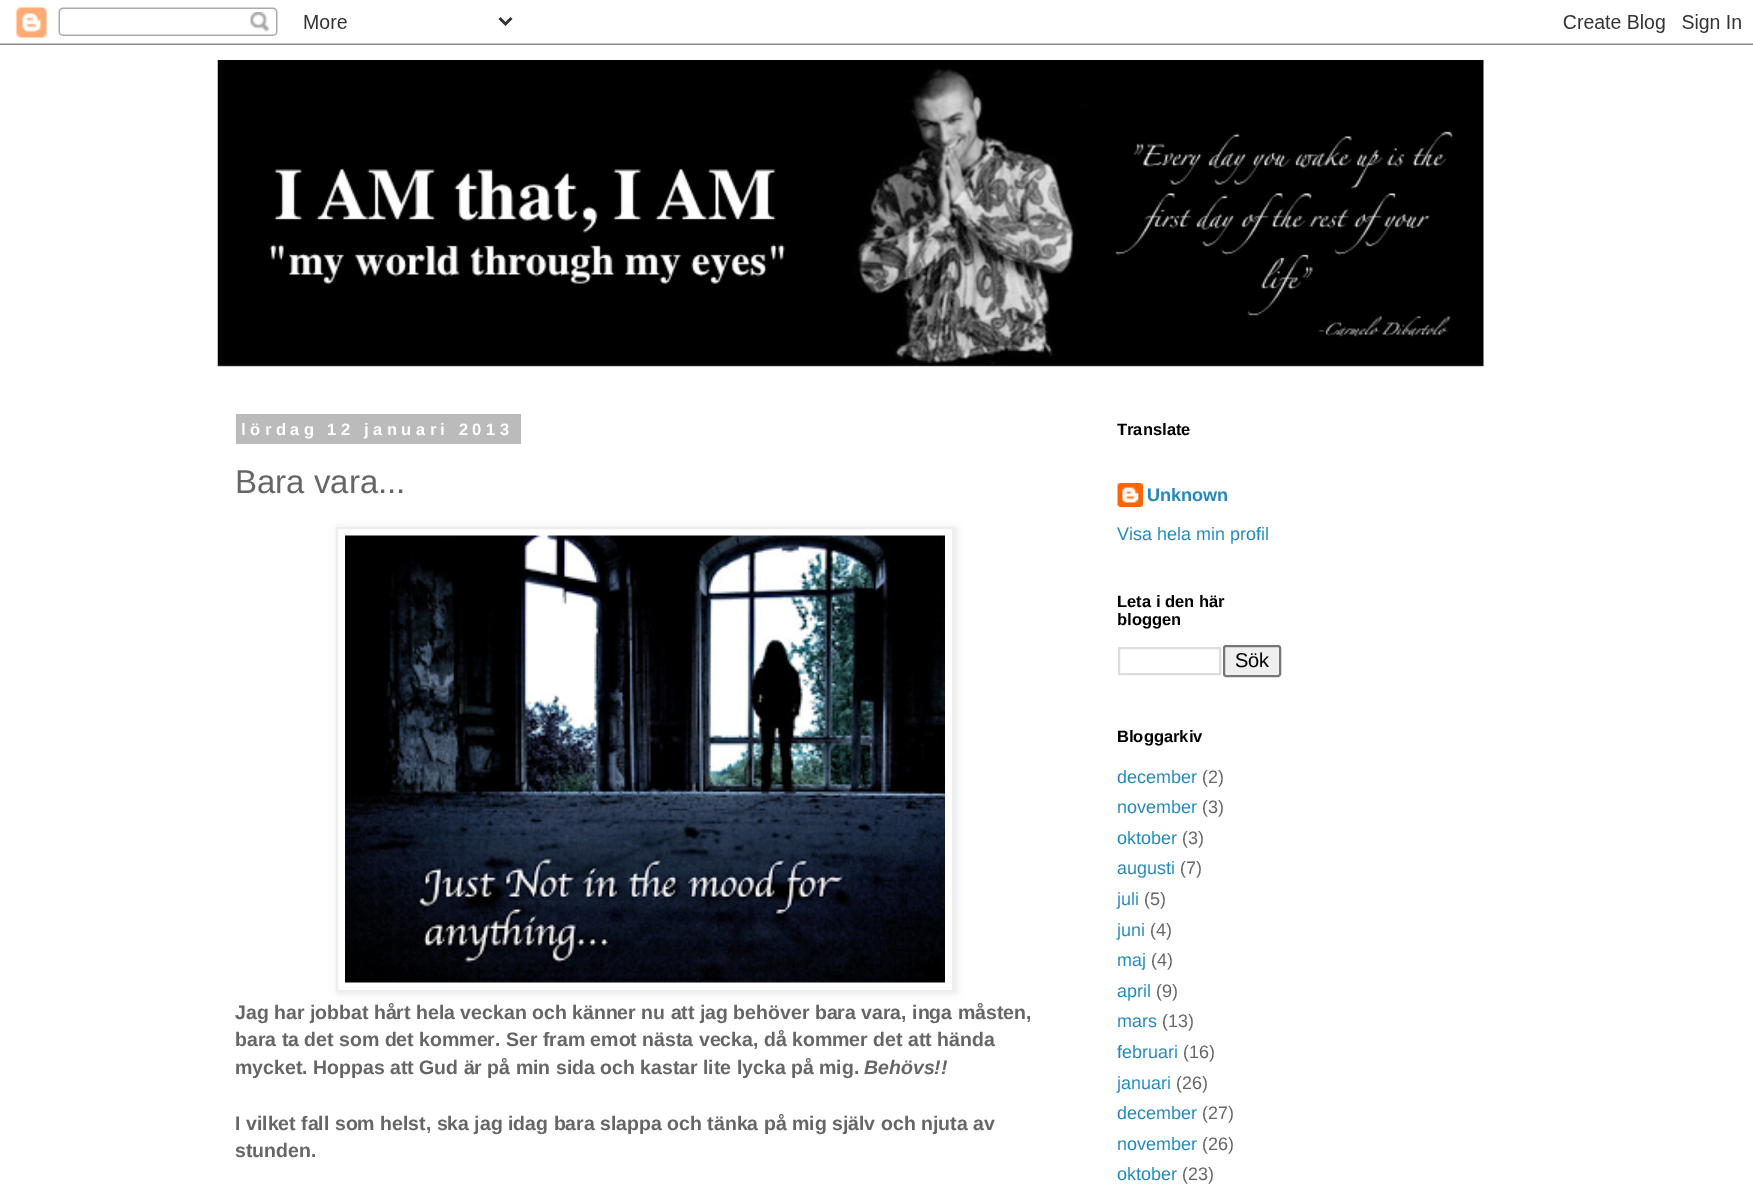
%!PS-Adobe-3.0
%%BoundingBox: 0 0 1753 1199
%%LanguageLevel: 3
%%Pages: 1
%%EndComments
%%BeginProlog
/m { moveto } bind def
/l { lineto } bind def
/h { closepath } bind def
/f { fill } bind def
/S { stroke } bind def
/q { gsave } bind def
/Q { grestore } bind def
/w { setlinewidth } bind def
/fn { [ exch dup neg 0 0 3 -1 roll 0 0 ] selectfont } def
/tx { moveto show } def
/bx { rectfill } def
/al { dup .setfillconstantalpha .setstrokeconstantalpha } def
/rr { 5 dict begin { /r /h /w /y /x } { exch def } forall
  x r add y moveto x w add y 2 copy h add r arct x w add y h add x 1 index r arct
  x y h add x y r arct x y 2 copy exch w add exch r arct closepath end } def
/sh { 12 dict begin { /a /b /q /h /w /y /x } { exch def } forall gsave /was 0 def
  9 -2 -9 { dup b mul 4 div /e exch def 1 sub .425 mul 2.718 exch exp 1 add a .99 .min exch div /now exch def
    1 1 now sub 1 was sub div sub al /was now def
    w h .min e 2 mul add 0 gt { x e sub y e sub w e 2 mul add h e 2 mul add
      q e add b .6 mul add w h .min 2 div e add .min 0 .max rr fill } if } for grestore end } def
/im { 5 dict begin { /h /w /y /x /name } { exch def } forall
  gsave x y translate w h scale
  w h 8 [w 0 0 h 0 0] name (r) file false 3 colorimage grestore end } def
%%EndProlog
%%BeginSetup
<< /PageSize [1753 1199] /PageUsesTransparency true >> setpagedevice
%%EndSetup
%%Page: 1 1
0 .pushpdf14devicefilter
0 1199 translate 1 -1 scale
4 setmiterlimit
1 setgray
0 0 1753 1199 bx
(image0.raw) 0 7 1753 38 im
(image1.raw) 217 60 1267 307 im
0.733 setgray
236 414 285 30 bx
/LiberationSans-Bold 16.5 fn
1 setgray
241 435 m 4.5 0 (lördag 12 januari 2013) ashow
/LiberationSans-Regular 33 fn
0.4 setgray
(Bara vara...) 235 493 tx
0 setgray
338 528 618 465 0 4 0.1 sh
1 setgray
337 528 m 953 528 l 953 991 l 337 991 l h q f Q
0.933 setgray
2 w
S
(image2.raw) 345 535 600 448 im
/LiberationSans-Bold 19.5 fn
0.4 setgray
(Jag har jobbat hårt hela veckan och känner nu att jag behöver bara vara, inga måsten,) 235 1019 tx
(bara ta det som det kommer. Ser fram emot nästa vecka, då kommer det att hända) 235 1046 tx
(mycket. Hoppas att Gud är på min sida och kastar lite lycka på mig.) 235 1074 tx
/LiberationSans-BoldItalic 19.5 fn
(Behövs!!) 864 1074 tx
/LiberationSans-Bold 19.5 fn
(I vilket fall som helst, ska jag idag bara slappa och tänka på mig själv och njuta av) 235 1130 tx
(stunden.) 235 1157 tx
/LiberationSans-Bold 16.5 fn
0 setgray
(Translate) 1117 435 tx
(image3.raw) 1117 483 26 24 im
/LiberationSans-Bold 18 fn
0.133 0.533 0.733 setrgbcolor
(Unknown) 1147 501 tx
/LiberationSans-Regular 18 fn
(Visa hela min profil) 1117 540 tx
/LiberationSans-Bold 16.5 fn
0 setgray
(Leta i den här) 1117 607 tx
(bloggen) 1117 625 tx
0.867 setgray
1119 648 101 26 rectstroke
0.937 setgray
1224 646 56 30 2 rr q f Q
0.463 setgray
S
/LiberationSans-Regular 20 fn
0 setgray
(Sök) 1235 667 tx
/LiberationSans-Bold 16.5 fn
(Bloggarkiv) 1117 742 tx
/LiberationSans-Regular 18 fn
0.133 0.533 0.733 setrgbcolor
(december) 1117 783 tx
0.4 setgray
(\(2\)) 1202 783 tx
0.133 0.533 0.733 setrgbcolor
(november) 1117 813 tx
0.4 setgray
(\(3\)) 1202 813 tx
0.133 0.533 0.733 setrgbcolor
(oktober) 1117 844 tx
0.4 setgray
(\(3\)) 1182 844 tx
0.133 0.533 0.733 setrgbcolor
(augusti) 1117 874 tx
0.4 setgray
(\(7\)) 1180 874 tx
0.133 0.533 0.733 setrgbcolor
(juli) 1117 905 tx
0.4 setgray
(\(5\)) 1144 905 tx
0.133 0.533 0.733 setrgbcolor
(juni) 1117 936 tx
0.4 setgray
(\(4\)) 1150 936 tx
0.133 0.533 0.733 setrgbcolor
(maj) 1117 966 tx
0.4 setgray
(\(4\)) 1151 966 tx
0.133 0.533 0.733 setrgbcolor
(april) 1117 997 tx
0.4 setgray
(\(9\)) 1156 997 tx
0.133 0.533 0.733 setrgbcolor
(mars) 1117 1027 tx
0.4 setgray
(\(13\)) 1162 1027 tx
0.133 0.533 0.733 setrgbcolor
(februari) 1117 1058 tx
0.4 setgray
(\(16\)) 1183 1058 tx
0.133 0.533 0.733 setrgbcolor
(januari) 1117 1089 tx
0.4 setgray
(\(26\)) 1176 1089 tx
0.133 0.533 0.733 setrgbcolor
(december) 1117 1119 tx
0.4 setgray
(\(27\)) 1202 1119 tx
0.133 0.533 0.733 setrgbcolor
(november) 1117 1150 tx
0.4 setgray
(\(26\)) 1202 1150 tx
0.133 0.533 0.733 setrgbcolor
(oktober) 1117 1180 tx
0.4 setgray
(\(23\)) 1182 1180 tx
.poppdf14devicefilter showpage
%%EOF
